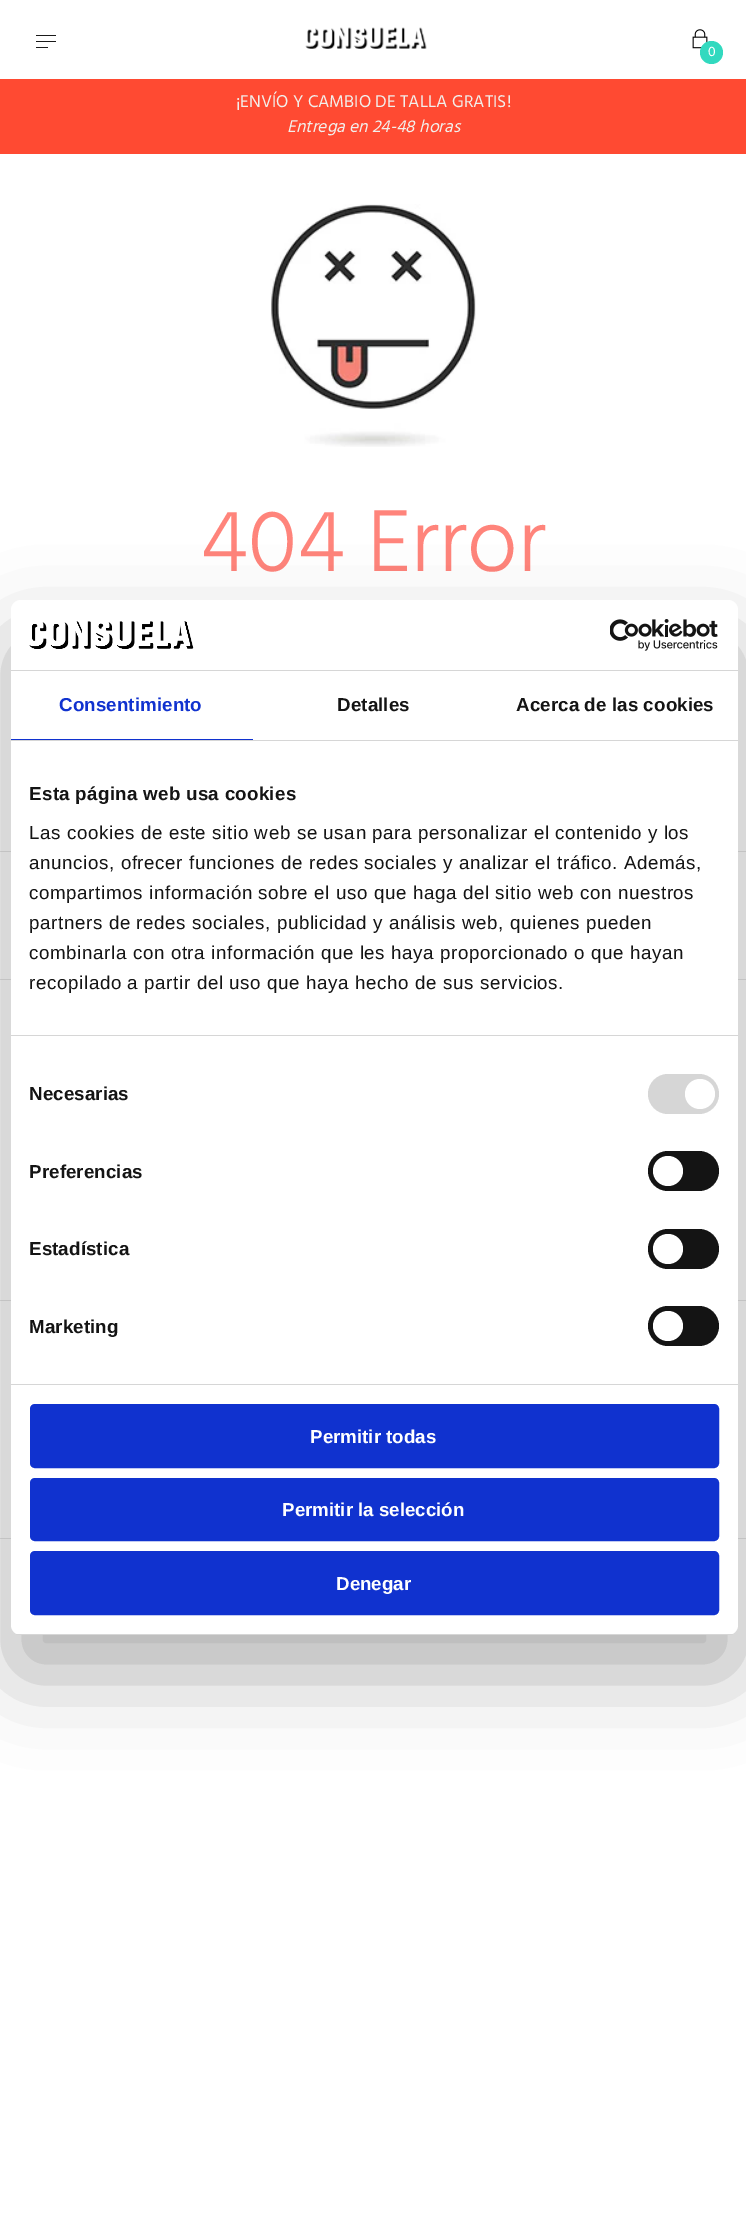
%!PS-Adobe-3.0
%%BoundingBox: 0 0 746 2234
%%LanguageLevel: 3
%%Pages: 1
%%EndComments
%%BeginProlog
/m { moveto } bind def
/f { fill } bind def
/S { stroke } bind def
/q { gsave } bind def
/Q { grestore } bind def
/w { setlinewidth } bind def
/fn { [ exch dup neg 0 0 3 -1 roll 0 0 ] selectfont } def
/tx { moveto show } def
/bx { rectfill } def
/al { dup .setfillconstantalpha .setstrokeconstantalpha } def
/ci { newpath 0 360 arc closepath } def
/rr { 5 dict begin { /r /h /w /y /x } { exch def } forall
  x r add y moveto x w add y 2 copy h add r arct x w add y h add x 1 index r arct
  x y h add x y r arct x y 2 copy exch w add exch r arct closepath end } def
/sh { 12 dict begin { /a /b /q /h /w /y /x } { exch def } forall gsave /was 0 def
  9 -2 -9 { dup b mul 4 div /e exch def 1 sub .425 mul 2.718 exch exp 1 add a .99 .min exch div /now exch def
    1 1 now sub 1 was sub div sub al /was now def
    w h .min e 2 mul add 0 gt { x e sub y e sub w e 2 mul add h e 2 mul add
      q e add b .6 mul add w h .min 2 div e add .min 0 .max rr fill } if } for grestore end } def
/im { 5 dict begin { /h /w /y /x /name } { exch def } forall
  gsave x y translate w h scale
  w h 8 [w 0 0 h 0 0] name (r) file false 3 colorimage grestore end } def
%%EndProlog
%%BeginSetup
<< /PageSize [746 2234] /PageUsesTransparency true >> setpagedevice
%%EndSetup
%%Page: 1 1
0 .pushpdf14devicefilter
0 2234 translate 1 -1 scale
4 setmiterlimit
1 setgray
0 0 746 2234 bx
0.102 setgray
36 35 20 1 bx
36 41 20 1 bx
36 47 12 1 bx
(image0.raw) 305 27 122 22 im
(image1.raw) 692 29 16 20 im
0.196 0.851 0.749 setrgbcolor
711.5 52.5 11.5 ci f
/Hind-Regular 14 fn
1 setgray
(0) 708 56 tx
1 0.29 0.196 setrgbcolor
0 79 746 75 bx
/Hind-Regular 17.5 fn
0.949 0.937 0.922 setrgbcolor
(¡ENVÍO Y CAMBIO DE TALLA GRATIS!) 236 107 tx
/Hind-Italic 17.5 fn
(Entrega en 24-48 horas) 287 132 tx
(image2.raw) 270 204 206 243 im
/Hind-Light 90 fn
1 0.518 0.482 setrgbcolor
(404 Error) 200 571 tx
0.898 setgray
0 851 746 1 bx
0 979 746 1 bx
0 1300 746 1 bx
0 1538 746 1 bx
0 setgray
11 640 727 1035 10 42.5 0.3 sh
1 setgray
11 600 727 1035 10 rr f
0.839 setgray
11 670 727 1 bx
(image3.raw) 29 621 165 28 im
(image4.raw) 610 619 108 32 im
11 740 727 1 bx
0.063 0.196 0.812 setrgbcolor
11 739 242 1 bx
/LiberationSans-Bold 18.75 fn
59 711 m 0.1 0 (Consentimiento) ashow
0.078 setgray
337 711 m 0.1 0 (Detalles) ashow
516 711 m 0.1 0 (Acerca de las cookies) ashow
0.839 setgray
11 1035 727 1 bx
0.078 setgray
29 800 m 0.3 0 (Esta página web usa cookies) ashow
/LiberationSans-Regular 18.75 fn
29 839 m 0.62 0 (Las cookies de este sitio web se usan para personalizar el contenido y los) ashow
29 869 m 0.62 0 (anuncios, ofrecer funciones de redes sociales y analizar el tráfico. Además,) ashow
29 899 m 0.62 0 (compartimos información sobre el uso que haga del sitio web con nuestros) ashow
29 929 m 0.62 0 (partners de redes sociales, publicidad y análisis web, quienes pueden) ashow
29 959 m 0.62 0 (combinarla con otra información que les haya proporcionado o que hayan) ashow
29 989 m 0.62 0 (recopilado a partir del uso que haya hecho de sus servicios.) ashow
0.839 setgray
11 1384 727 1 bx
/LiberationSans-Bold 18.75 fn
0.078 setgray
29 1100 m 0.1 0 (Necesarias) ashow
0.839 setgray
648 1074 71 40 20 rr f
1 setgray
700 1094 15 ci f
0.078 setgray
29 1178 m 0.1 0 (Preferencias) ashow
648 1151 71 40 20 rr f
1 setgray
668 1171 15 ci f
0.078 setgray
29 1255 m 0.1 0 (Estadística) ashow
648 1229 71 40 20 rr f
1 setgray
668 1249 15 ci f
0.078 setgray
29 1333 m 0.1 0 (Marketing) ashow
648 1306 71 40 20 rr f
1 setgray
668 1326 15 ci f
q
11 600 727 1035 10 rr clip newpath
0.839 setgray
11 1634 727 1 bx
Q
0.063 0.196 0.812 setrgbcolor
31.5 1405.5 686 61 3.5 rr q f Q
3 w
S
1 setgray
(Permitir todas) 310 1443 tx
0.063 0.196 0.812 setrgbcolor
31.5 1479.5 686 60 3.5 rr q f Q
S
1 setgray
(Permitir la selección) 282 1516 tx
0.063 0.196 0.812 setrgbcolor
31.5 1552.5 686 61 3.5 rr q f Q
S
1 setgray
(Denegar) 336 1590 tx
.poppdf14devicefilter showpage
%%EOF
